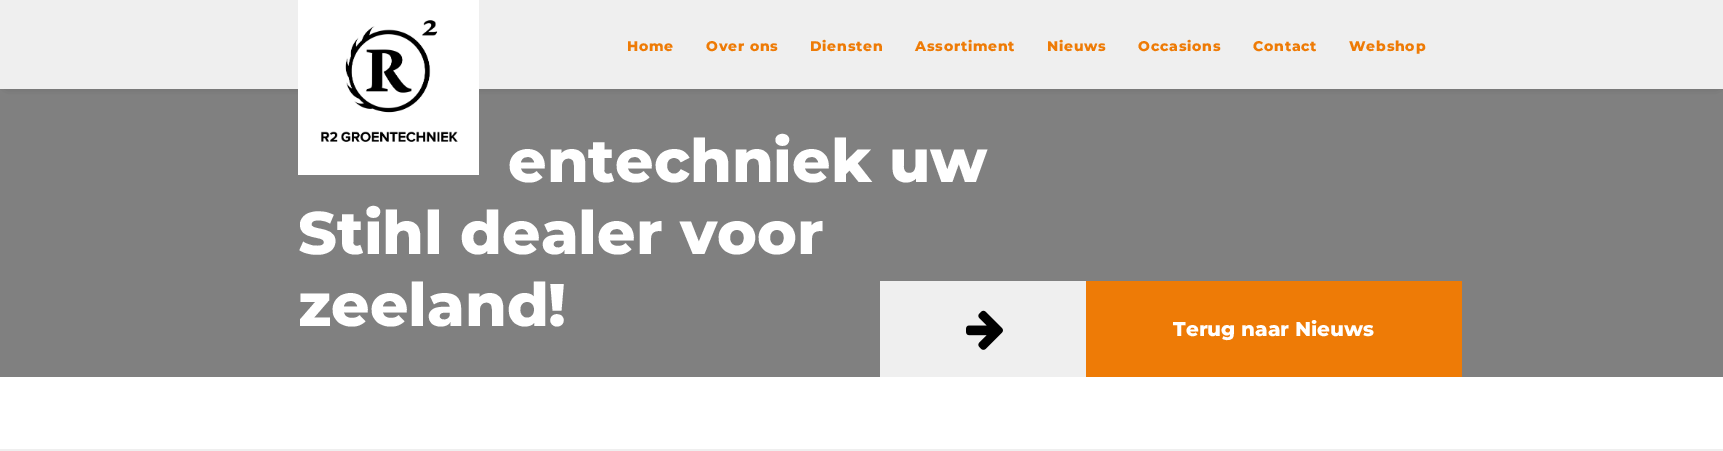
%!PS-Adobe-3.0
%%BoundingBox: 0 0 1723 451
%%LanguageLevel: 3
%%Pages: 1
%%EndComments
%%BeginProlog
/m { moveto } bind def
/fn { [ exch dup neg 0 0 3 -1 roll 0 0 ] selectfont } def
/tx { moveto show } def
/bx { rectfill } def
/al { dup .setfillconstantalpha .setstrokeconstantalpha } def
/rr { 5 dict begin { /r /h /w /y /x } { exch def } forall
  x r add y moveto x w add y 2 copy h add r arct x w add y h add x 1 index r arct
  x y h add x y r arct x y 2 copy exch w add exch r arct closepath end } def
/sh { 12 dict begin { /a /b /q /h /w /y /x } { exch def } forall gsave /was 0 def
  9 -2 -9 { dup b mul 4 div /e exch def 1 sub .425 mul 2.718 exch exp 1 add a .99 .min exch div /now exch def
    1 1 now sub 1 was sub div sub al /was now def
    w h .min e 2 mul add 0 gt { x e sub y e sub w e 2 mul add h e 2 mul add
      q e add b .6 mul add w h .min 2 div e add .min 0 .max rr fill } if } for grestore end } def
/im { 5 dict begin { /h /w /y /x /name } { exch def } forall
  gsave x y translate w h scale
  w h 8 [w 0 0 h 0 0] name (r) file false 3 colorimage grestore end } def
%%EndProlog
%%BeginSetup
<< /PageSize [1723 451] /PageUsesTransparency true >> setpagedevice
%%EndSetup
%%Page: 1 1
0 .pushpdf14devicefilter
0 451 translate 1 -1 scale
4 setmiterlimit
1 setgray
0 0 1723 451 bx
0.502 setgray
0 89 1723 288 bx
0 setgray
8 14 1708 69 0 5 0.6 sh
0.937 setgray
0 0 1723 89 bx
(image0.raw) 298 0 181 175 im
/Montserrat-ExtraBold 14 fn
0.933 0.482 0.024 setrgbcolor
627 51 m 0.75 0 (Home) ashow
706 51 m 0.75 0 (Over ons) ashow
810 51 m 0.75 0 (Diensten) ashow
915 51 m 0.75 0 (Assortiment) ashow
1047 51 m 0.75 0 (Nieuws) ashow
1138 51 m 0.75 0 (Occasions) ashow
1253 51 m 0.75 0 (Contact) ashow
1349 51 m 0.75 0 (Webshop) ashow
/Montserrat-ExtraBold 60 fn
1 setgray
(entechniek uw) 508 182 tx
(Stihl dealer voor) 298 254 tx
(zeeland!) 298 326 tx
0.937 setgray
880 281 206 96 bx
(image1.raw) 966 310 37 40 im
0.933 0.482 0.024 setrgbcolor
1086 281 376 96 bx
/Montserrat-ExtraBold 20 fn
1 setgray
(Terug naar Nieuws) 1173 336 tx
0.937 setgray
0 449 1723 2 bx
.poppdf14devicefilter showpage
%%EOF
